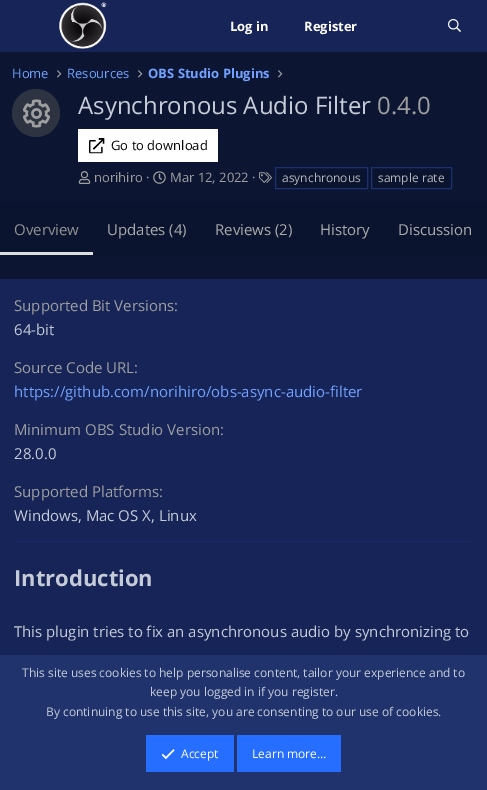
%!PS-Adobe-3.0
%%BoundingBox: 0 0 487 790
%%LanguageLevel: 3
%%Pages: 1
%%EndComments
%%BeginProlog
/m { moveto } bind def
/l { lineto } bind def
/h { closepath } bind def
/f { fill } bind def
/S { stroke } bind def
/q { gsave } bind def
/Q { grestore } bind def
/fn { [ exch dup neg 0 0 3 -1 roll 0 0 ] selectfont } def
/tx { moveto show } def
/bx { rectfill } def
/ci { newpath 0 360 arc closepath } def
/im { 5 dict begin { /h /w /y /x /name } { exch def } forall
  gsave x y translate w h scale
  w h 8 [w 0 0 h 0 0] name (r) file false 3 colorimage grestore end } def
%%EndProlog
%%BeginSetup
<< /PageSize [487 790] >> setpagedevice
%%EndSetup
%%Page: 1 1
0 790 translate 1 -1 scale
4 setmiterlimit
0.047 0.086 0.2 setrgbcolor
0 0 487 790 bx
0.086 0.141 0.345 setrgbcolor
0 0 487 52 bx
(image0.raw) 59 2 48 48 im
/OpenSans-Bold 13 fn
1 setgray
(Log in) 230 31 tx
(Register) 304 31 tx
(image1.raw) 448 19 13 13 im
/OpenSans-Regular 13 fn
0.447 0.635 1 setrgbcolor
(Home) 12 78 tx
(image2.raw) 57 70 5 8 im
(Resources) 67 78 tx
(image2.raw) 138 70 5 8 im
/OpenSans-Bold 13 fn
(OBS Studio Plugins) 148 78 tx
(image2.raw) 278 70 5 8 im
0.18 0.2 0.259 setrgbcolor
36 113 24 ci f
(image3.raw) 23 99 27 29 im
/OpenSans-Regular 24 fn
0.776 0.8 0.843 setrgbcolor
(Asynchronous Audio Filter) 78 114 tx
0.624 setgray
(0.4.0) 377 114 tx
1 setgray
78 129 140 33 bx
(image4.raw) 89 138 16 16 im
/OpenSans-Regular 13 fn
0 setgray
(Go to download) 111 150 tx
(image5.raw) 78 171 13 13 im
0.624 setgray
(norihiro ·) 94 182 tx
(image6.raw) 153 171 13 13 im
(Mar 12, 2022 ·) 170 182 tx
(image7.raw) 259 172 13 11 im
0.043 0.078 0.184 setrgbcolor
275.5 167.5 m 367.5 167.5 l 367.5 188.5 l 275.5 188.5 l h q f Q
0.106 0.192 0.443 setrgbcolor
S
/OpenSans-Regular 12 fn
0.702 0.714 0.733 setrgbcolor
(asynchronous) 282 182 tx
0.043 0.078 0.184 setrgbcolor
371.5 167.5 m 451.5 167.5 l 451.5 188.5 l 371.5 188.5 l h q f Q
0.106 0.192 0.443 setrgbcolor
S
0.702 0.714 0.733 setrgbcolor
(sample rate) 378 182 tx
0.043 0.078 0.184 setrgbcolor
0 203 487 52 bx
0.871 setgray
0 252 93 3 bx
/OpenSans-Regular 15 fn
0.573 setgray
(Overview) 14 235 tx
0.671 setgray
(Updates \(4\)) 107 235 tx
(Reviews \(2\)) 215 235 tx
(History) 320 235 tx
(Discussion) 398 235 tx
0.086 0.141 0.345 setrgbcolor
0 279 487 376 bx
0.094 0.169 0.396 setrgbcolor
14 541 459 1 bx
0.624 setgray
(Supported Bit Versions:) 14 311 tx
0.776 0.8 0.843 setrgbcolor
(64-bit) 14 335 tx
0.624 setgray
(Source Code URL:) 14 373 tx
0.447 0.635 1 setrgbcolor
(https://github.com/norihiro/obs-async-audio-filter) 14 397 tx
0.624 setgray
(Minimum OBS Studio Version:) 14 435 tx
0.776 0.8 0.843 setrgbcolor
(28.0.0) 14 459 tx
0.624 setgray
(Supported Platforms:) 14 497 tx
0.776 0.8 0.843 setrgbcolor
(Windows, Mac OS X, Linux) 14 521 tx
/OpenSans-Bold 22 fn
(Introduction) 14 586 tx
/OpenSans-Regular 15 fn
(This plugin tries to fix an asynchronous audio by synchronizing to) 14 637 tx
0.125 0.2 0.427 setrgbcolor
0 655 487 135 bx
/OpenSans-Regular 12 fn
0.776 0.8 0.843 setrgbcolor
(This site uses cookies to help personalise content, tailor your experience and to) 22 677 tx
(keep you logged in if you register.) 150 696 tx
(By continuing to use this site, you are consenting to our use of cookies.) 46 716 tx
0.145 0.431 1 setrgbcolor
146 735 88 37 bx
(image8.raw) 161 749 14 11 im
1 setgray
(Accept) 181 758 tx
0.145 0.431 1 setrgbcolor
237 735 104 37 bx
1 setgray
(Learn more…) 252 758 tx
showpage
%%EOF
